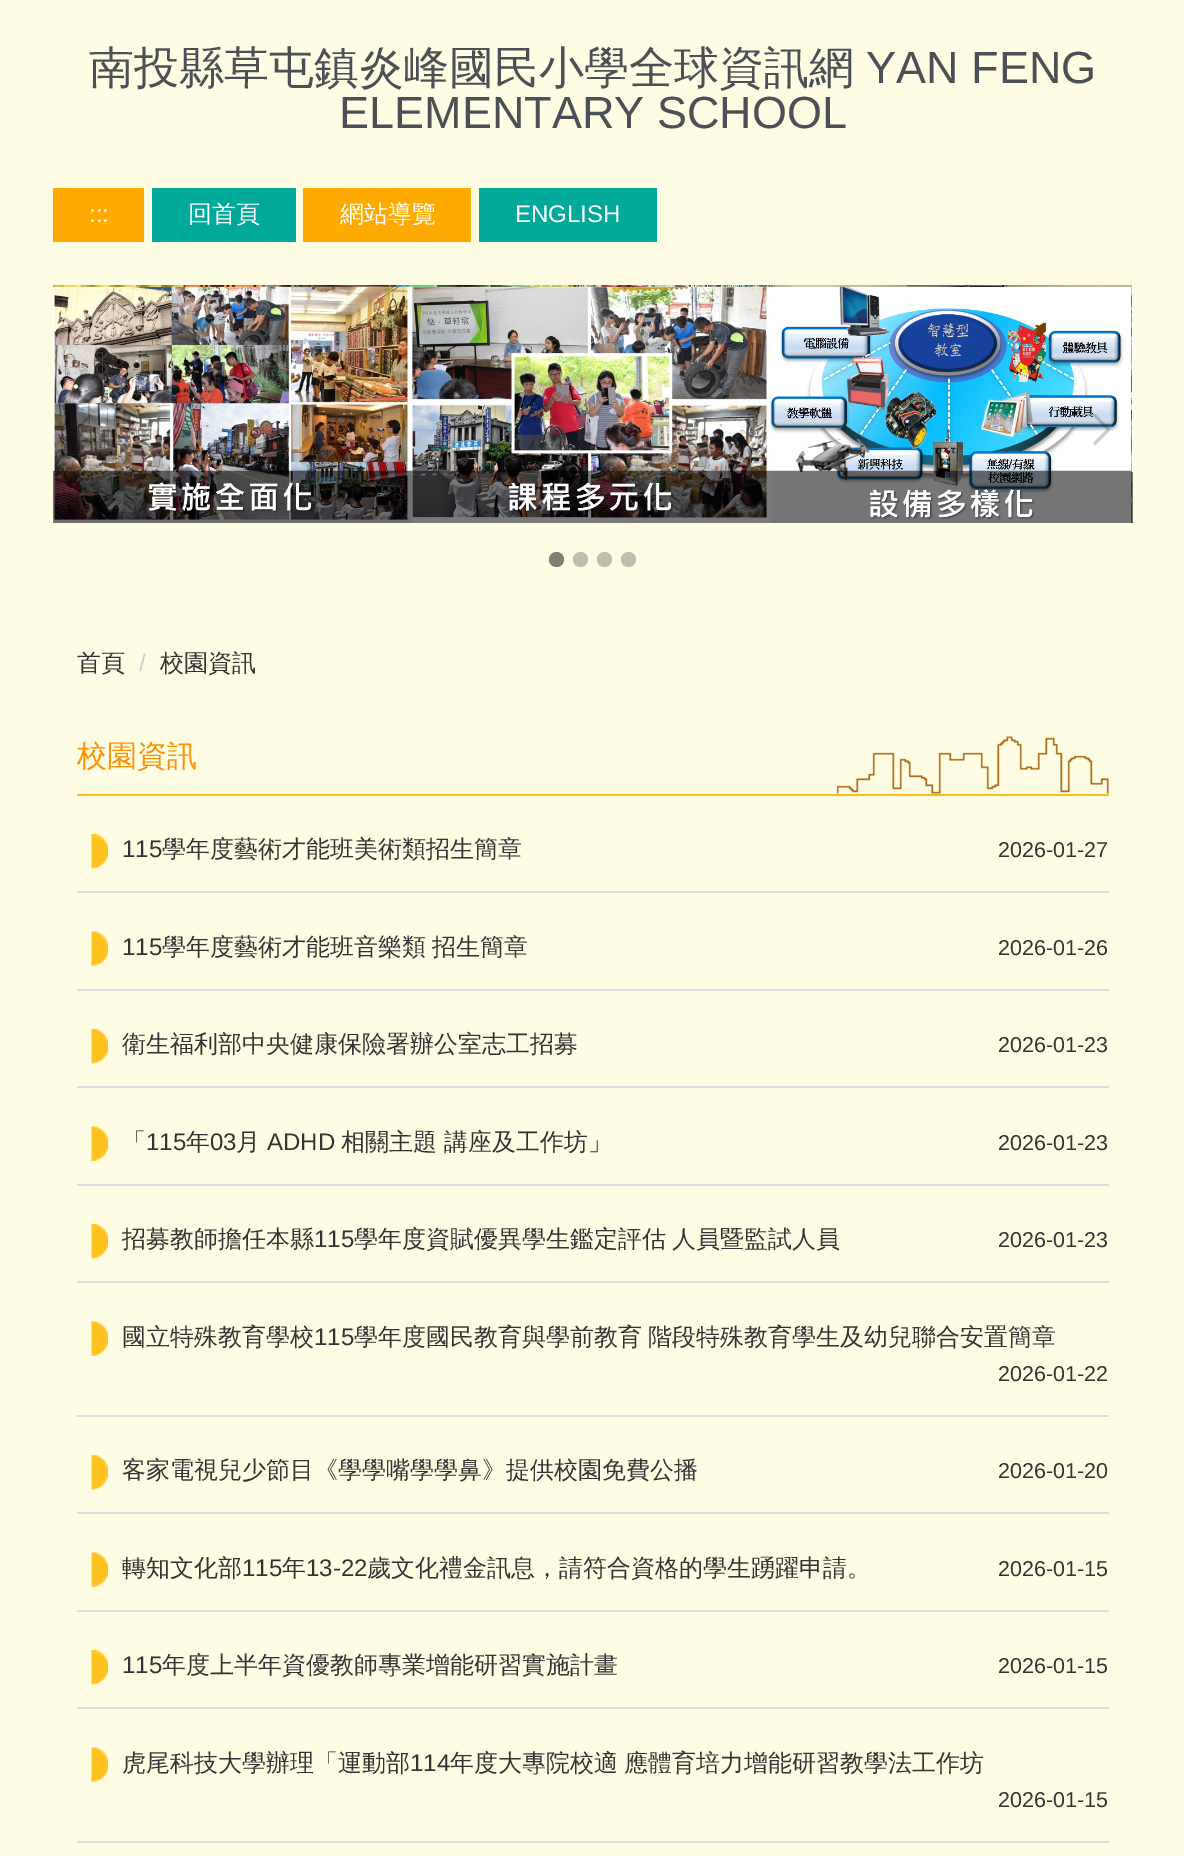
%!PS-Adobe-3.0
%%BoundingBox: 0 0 1184 1856
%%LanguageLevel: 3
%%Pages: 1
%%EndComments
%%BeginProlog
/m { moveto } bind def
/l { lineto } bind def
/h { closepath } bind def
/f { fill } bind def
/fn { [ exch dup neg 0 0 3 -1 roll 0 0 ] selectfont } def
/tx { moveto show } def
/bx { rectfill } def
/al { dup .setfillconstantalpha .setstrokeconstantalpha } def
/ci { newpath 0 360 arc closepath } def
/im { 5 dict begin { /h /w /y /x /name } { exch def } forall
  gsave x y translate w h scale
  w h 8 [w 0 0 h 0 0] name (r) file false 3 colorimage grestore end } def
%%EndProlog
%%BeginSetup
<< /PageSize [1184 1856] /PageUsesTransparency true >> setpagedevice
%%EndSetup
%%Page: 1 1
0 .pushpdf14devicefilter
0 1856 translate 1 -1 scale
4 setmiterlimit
0.996 0.988 0.89 setrgbcolor
0 0 1184 1856 bx
/WenQuanYiZenHei-Medium 45 fn
0.298 0.31 0.329 setrgbcolor
(南投縣草屯鎮炎峰國民小學全球資訊網) 89 83 tx
/LiberationSans-Regular 45 fn
(YAN FENG) 866 83 tx
(ELEMENTARY SCHOOL) 339 128 tx
1 0.667 0 setrgbcolor
53 188 91 54 bx
/LiberationSans-Regular 24 fn
1 setgray
(:::) 89 222 tx
0 0.663 0.6 setrgbcolor
152 188 144 54 bx
/WenQuanYiZenHei-Medium 24 fn
1 setgray
(回首頁) 188 222 tx
1 0.667 0 setrgbcolor
303 188 168 54 bx
1 setgray
(網站導覽) 340 222 tx
0 0.663 0.6 setrgbcolor
479 188 178 54 bx
/LiberationSans-Regular 24 fn
1 setgray
(ENGLISH) 515 222 tx
(image0.raw) 53 285 1080 238 im
0.19 al
0 setgray
90 445.5 m 74 429.5 l 78.5 429.5 l 92 443 l h f
74 429.5 m 90 413.5 l 92 415.5 l 78.5 429.5 l h f
1095 413.5 m 1111 429.5 l 1106.5 429.5 l 1093 415.5 l h f
1111 429.5 m 1095 445.5 l 1093 443 l 1106.5 429.5 l h f
1 al
0.498 0.494 0.447 setrgbcolor
556.5 559.5 7.5 ci f
0.749 0.741 0.671 setrgbcolor
580.5 559.5 7.5 ci f
604.5 559.5 7.5 ci f
628.5 559.5 7.5 ci f
(image1.raw) 78 651 26 26 im
/WenQuanYiZenHei-Medium 24 fn
0.2 setgray
(首頁) 77 671 tx
/LiberationSans-Regular 24 fn
0.8 setgray
(/) 139 671 tx
/WenQuanYiZenHei-Medium 24 fn
0.2 setgray
(校園資訊) 160 671 tx
(image2.raw) 836 736 273 58 im
1 0.741 0.114 setrgbcolor
77 794 1032 2 bx
/WenQuanYiZenHei-Medium 30 fn
1 0.565 0 setrgbcolor
(校園資訊) 77 766 tx
0.867 setgray
77 891 1032 2 bx
(image3.raw) 91 834 17 35 im
/LiberationSans-Regular 24 fn
0.2 setgray
(115) 122 857 tx
/WenQuanYiZenHei-Medium 24 fn
(學年度藝術才能班美術類招生簡章) 162 857 tx
/LiberationSans-Regular 21.5 fn
(2026-01-27) 998 857 tx
0.867 setgray
77 989 1032 2 bx
(image4.raw) 91 931 17 35 im
/LiberationSans-Regular 24 fn
0.2 setgray
(115) 122 955 tx
/WenQuanYiZenHei-Medium 24 fn
162 955 m -1 0 32 (學年度藝術才能班音樂類 招生簡章) widthshow
/LiberationSans-Regular 21.5 fn
(2026-01-26) 998 955 tx
0.867 setgray
77 1086 1032 2 bx
(image3.raw) 91 1029 17 35 im
/WenQuanYiZenHei-Medium 24 fn
0.2 setgray
(衛生福利部中央健康保險署辦公室志工招募) 122 1052 tx
/LiberationSans-Regular 21.5 fn
(2026-01-23) 998 1052 tx
0.867 setgray
77 1184 1032 2 bx
(image4.raw) 91 1126 17 35 im
/WenQuanYiZenHei-Medium 24 fn
0.2 setgray
(「) 122 1150 tx
/LiberationSans-Regular 24 fn
(115) 146 1150 tx
/WenQuanYiZenHei-Medium 24 fn
(年) 186 1150 tx
/LiberationSans-Regular 24 fn
(03) 210 1150 tx
/WenQuanYiZenHei-Medium 24 fn
(月) 236 1150 tx
/LiberationSans-Regular 24 fn
(ADHD) 267 1150 tx
/WenQuanYiZenHei-Medium 24 fn
(相關主題 講座及工作坊」) 341 1150 tx
/LiberationSans-Regular 21.5 fn
(2026-01-23) 998 1150 tx
0.867 setgray
77 1281 1032 2 bx
(image3.raw) 91 1224 17 35 im
/WenQuanYiZenHei-Medium 24 fn
0.2 setgray
(招募教師擔任本縣) 122 1247 tx
/LiberationSans-Regular 24 fn
(115) 314 1247 tx
/WenQuanYiZenHei-Medium 24 fn
354 1247 m -1 0 32 (學年度資賦優異學生鑑定評估 人員暨監試人員) widthshow
/LiberationSans-Regular 21.5 fn
(2026-01-23) 998 1247 tx
0.867 setgray
77 1415 1032 2 bx
(image4.raw) 91 1321 17 35 im
/WenQuanYiZenHei-Medium 24 fn
0.2 setgray
(國立特殊教育學校) 122 1345 tx
/LiberationSans-Regular 24 fn
(115) 314 1345 tx
/WenQuanYiZenHei-Medium 24 fn
354 1345 m -1 0 32 (學年度國民教育與學前教育 階段特殊教育學生及幼兒聯合安置簡章) widthshow
/LiberationSans-Regular 21.5 fn
(2026-01-22) 998 1381 tx
0.867 setgray
77 1512 1032 2 bx
(image3.raw) 91 1455 17 35 im
/WenQuanYiZenHei-Medium 24 fn
0.2 setgray
(客家電視兒少節目《學學嘴學學鼻》提供校園免費公播) 122 1478 tx
/LiberationSans-Regular 21.5 fn
(2026-01-20) 998 1478 tx
0.867 setgray
77 1610 1032 2 bx
(image4.raw) 91 1552 17 35 im
/WenQuanYiZenHei-Medium 24 fn
0.2 setgray
(轉知文化部) 122 1576 tx
/LiberationSans-Regular 24 fn
(115) 242 1576 tx
/WenQuanYiZenHei-Medium 24 fn
(年) 282 1576 tx
/LiberationSans-Regular 24 fn
(13-22) 306 1576 tx
/WenQuanYiZenHei-Medium 24 fn
(歲文化禮金訊息，請符合資格的學生踴躍申請。) 367 1576 tx
/LiberationSans-Regular 21.5 fn
(2026-01-15) 998 1576 tx
0.867 setgray
77 1707 1032 2 bx
(image3.raw) 91 1650 17 35 im
/LiberationSans-Regular 24 fn
0.2 setgray
(115) 122 1673 tx
/WenQuanYiZenHei-Medium 24 fn
(年度上半年資優教師專業增能研習實施計畫) 162 1673 tx
/LiberationSans-Regular 21.5 fn
(2026-01-15) 998 1673 tx
0.867 setgray
77 1841 1032 2 bx
(image4.raw) 91 1747 17 35 im
/WenQuanYiZenHei-Medium 24 fn
0.2 setgray
(虎尾科技大學辦理「運動部) 122 1771 tx
/LiberationSans-Regular 24 fn
(114) 410 1771 tx
/WenQuanYiZenHei-Medium 24 fn
450 1771 m -1 0 32 (年度大專院校適 應體育培力增能研習教學法工作坊) widthshow
/LiberationSans-Regular 21.5 fn
(2026-01-15) 998 1807 tx
.poppdf14devicefilter showpage
%%EOF
